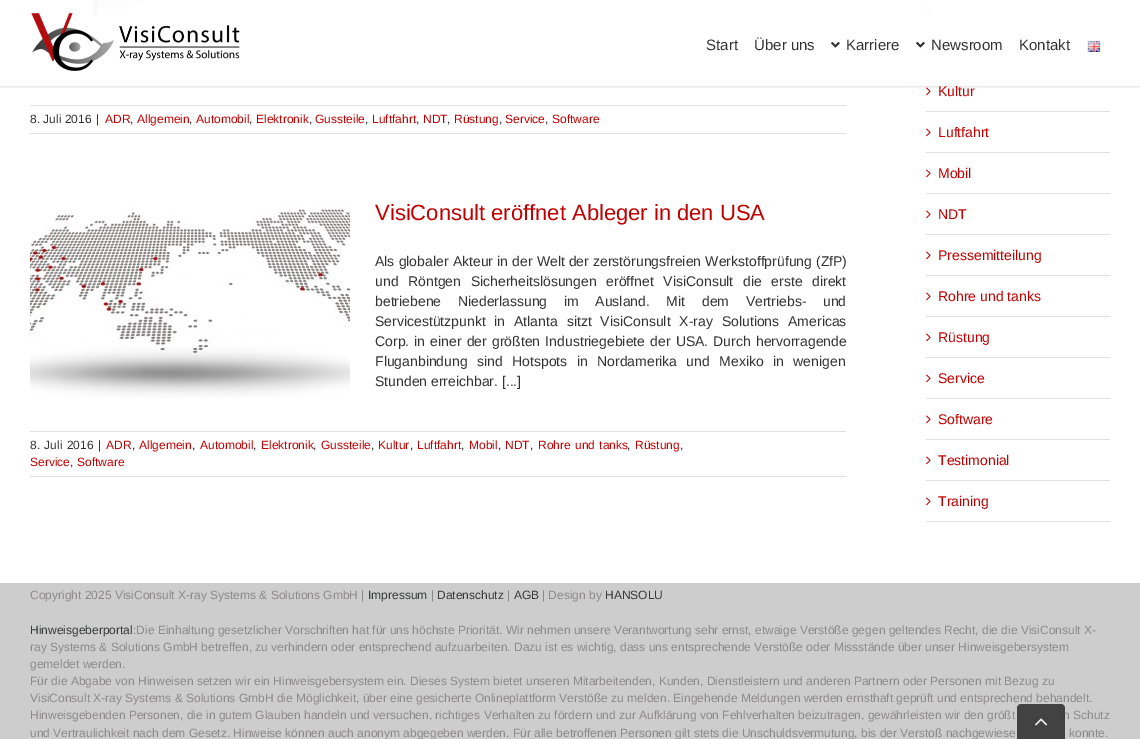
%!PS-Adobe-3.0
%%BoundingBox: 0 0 1140 739
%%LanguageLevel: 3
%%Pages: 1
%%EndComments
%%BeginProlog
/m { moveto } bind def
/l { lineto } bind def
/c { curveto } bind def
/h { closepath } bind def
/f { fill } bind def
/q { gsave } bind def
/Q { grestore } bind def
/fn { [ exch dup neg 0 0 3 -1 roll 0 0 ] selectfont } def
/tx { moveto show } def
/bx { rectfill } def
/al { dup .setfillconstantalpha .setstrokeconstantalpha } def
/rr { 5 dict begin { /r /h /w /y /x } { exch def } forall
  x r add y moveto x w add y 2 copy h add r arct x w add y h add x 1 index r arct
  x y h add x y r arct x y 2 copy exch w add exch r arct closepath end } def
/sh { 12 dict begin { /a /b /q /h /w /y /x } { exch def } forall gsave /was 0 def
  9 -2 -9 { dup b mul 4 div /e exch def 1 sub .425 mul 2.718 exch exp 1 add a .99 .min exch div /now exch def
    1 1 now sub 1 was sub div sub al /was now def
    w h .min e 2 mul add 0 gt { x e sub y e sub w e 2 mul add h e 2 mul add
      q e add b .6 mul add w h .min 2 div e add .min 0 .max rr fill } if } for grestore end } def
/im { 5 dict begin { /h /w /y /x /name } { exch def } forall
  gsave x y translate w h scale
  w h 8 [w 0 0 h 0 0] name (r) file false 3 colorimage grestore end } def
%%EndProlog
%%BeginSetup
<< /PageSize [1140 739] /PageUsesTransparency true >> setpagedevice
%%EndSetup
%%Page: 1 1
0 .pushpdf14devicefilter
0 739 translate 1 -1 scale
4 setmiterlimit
1 setgray
0 0 1140 739 bx
(image3.raw) 43 0 120 18 im
0.878 0.871 0.871 setrgbcolor
926 29 184 1 bx
(image5.raw) 926 5 5 9 im
926 70 184 1 bx
(image5.raw) 926 46 5 9 im
(image5.raw) 926 87 5 9 im
q
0 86 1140 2 rectclip
0 setgray
0 1 1140 86 0 1.5 0.12 sh
Q
/LiberationSans-Regular 14 fn
0.753 0 0 setrgbcolor
(Kultur) 938 96 tx
0.97 al
1 setgray
43 0 1067 86 bx
1 al
(image0.raw) 31 13 209 58 im
/LiberationSans-Regular 15 fn
0.2 setgray
(Start) 706 50 tx
(Über uns) 754 50 tx
(image1.raw) 831 42 9 6 im
(Karriere) 846 50 tx
(image1.raw) 916 42 9 6 im
(Newsroom) 931 50 tx
(Kontakt) 1019 50 tx
(image2.raw) 1087 40 14 12 im
0.878 0.871 0.871 setrgbcolor
30 105 816 1 bx
30 133 816 1 bx
/LiberationSans-Regular 12 fn
0.2 setgray
(8. Juli 2016) 30 123 tx
(|) 96 123 tx
0.753 0 0 setrgbcolor
(ADR) 105 123 tx
0.2 setgray
(,) 130 123 tx
0.753 0 0 setrgbcolor
(Allgemein) 137 123 tx
0.2 setgray
(,) 189 123 tx
0.753 0 0 setrgbcolor
(Automobil) 196 123 tx
0.2 setgray
(,) 249 123 tx
0.753 0 0 setrgbcolor
(Elektronik) 256 123 tx
0.2 setgray
(,) 309 123 tx
0.753 0 0 setrgbcolor
(Gussteile) 315 123 tx
0.2 setgray
(,) 365 123 tx
0.753 0 0 setrgbcolor
(Luftfahrt) 372 123 tx
0.2 setgray
(,) 416 123 tx
0.753 0 0 setrgbcolor
(NDT) 423 123 tx
0.2 setgray
(,) 447 123 tx
0.753 0 0 setrgbcolor
(Rüstung) 454 123 tx
0.2 setgray
(,) 499 123 tx
0.753 0 0 setrgbcolor
(Service) 505 123 tx
0.2 setgray
(,) 545 123 tx
0.753 0 0 setrgbcolor
(Software) 552 123 tx
(image4.raw) 30 207 320 191 im
/LiberationSans-Regular 22 fn
(VisiConsult eröffnet Ableger in den USA) 375 220 tx
/LiberationSans-Regular 14 fn
0.2 setgray
375 266 m 0.25 0 32 (Als globaler Akteur in der Welt der zerstörungsfreien Werkstoffprüfung \(ZfP\)) widthshow
375 286 m 5.75 0 32 (und Röntgen Sicherheitslösungen eröffnet VisiConsult die erste direkt) widthshow
375 306 m 12.75 0 32 (betriebene Niederlassung im Ausland. Mit dem Vertriebs- und) widthshow
375 326 m 5 0 32 (Servicestützpunkt in Atlanta sitzt VisiConsult X-ray Solutions Americas) widthshow
375 346 m 1.25 0 32 (Corp. in einer der größten Industriegebiete der USA. Durch hervorragende) widthshow
375 366 m 5.5 0 32 (Fluganbindung sind Hotspots in Nordamerika und Mexiko in wenigen) widthshow
(Stunden erreichbar. [...]) 375 386 tx
0.878 0.871 0.871 setrgbcolor
30 431 816 1 bx
30 476 816 1 bx
/LiberationSans-Regular 12 fn
0.2 setgray
30 449 m 1 0 32 (8. Juli 2016) widthshow
(|) 98 449 tx
0.753 0 0 setrgbcolor
(ADR) 106 449 tx
0.2 setgray
(,) 132 449 tx
0.753 0 0 setrgbcolor
(Allgemein) 139 449 tx
0.2 setgray
(,) 192 449 tx
0.753 0 0 setrgbcolor
(Automobil) 200 449 tx
0.2 setgray
(,) 253 449 tx
0.753 0 0 setrgbcolor
(Elektronik) 261 449 tx
0.2 setgray
(,) 313 449 tx
0.753 0 0 setrgbcolor
(Gussteile) 321 449 tx
0.2 setgray
(,) 371 449 tx
0.753 0 0 setrgbcolor
(Kultur) 378 449 tx
0.2 setgray
(,) 410 449 tx
0.753 0 0 setrgbcolor
(Luftfahrt) 417 449 tx
0.2 setgray
(,) 461 449 tx
0.753 0 0 setrgbcolor
(Mobil) 469 449 tx
0.2 setgray
(,) 498 449 tx
0.753 0 0 setrgbcolor
(NDT) 505 449 tx
0.2 setgray
(,) 530 449 tx
0.753 0 0 setrgbcolor
538 449 m 1 0 32 (Rohre und tanks) widthshow
0.2 setgray
(,) 627 449 tx
0.753 0 0 setrgbcolor
(Rüstung) 635 449 tx
0.2 setgray
(,) 680 449 tx
0.753 0 0 setrgbcolor
(Service) 30 466 tx
0.2 setgray
(,) 70 466 tx
0.753 0 0 setrgbcolor
(Software) 77 466 tx
0.878 0.871 0.871 setrgbcolor
926 111 184 1 bx
926 152 184 1 bx
(image5.raw) 926 128 5 9 im
/LiberationSans-Regular 14 fn
0.753 0 0 setrgbcolor
(Luftfahrt) 938 137 tx
0.878 0.871 0.871 setrgbcolor
926 193 184 1 bx
(image5.raw) 926 169 5 9 im
0.753 0 0 setrgbcolor
(Mobil) 938 178 tx
0.878 0.871 0.871 setrgbcolor
926 234 184 1 bx
(image5.raw) 926 210 5 9 im
0.753 0 0 setrgbcolor
(NDT) 938 219 tx
0.878 0.871 0.871 setrgbcolor
926 275 184 1 bx
(image5.raw) 926 251 5 9 im
0.753 0 0 setrgbcolor
(Pressemitteilung) 938 260 tx
0.878 0.871 0.871 setrgbcolor
926 316 184 1 bx
(image5.raw) 926 292 5 9 im
0.753 0 0 setrgbcolor
(Rohre und tanks) 938 301 tx
0.878 0.871 0.871 setrgbcolor
926 357 184 1 bx
(image5.raw) 926 333 5 9 im
0.753 0 0 setrgbcolor
(Rüstung) 938 342 tx
0.878 0.871 0.871 setrgbcolor
926 398 184 1 bx
(image5.raw) 926 374 5 9 im
0.753 0 0 setrgbcolor
(Service) 938 383 tx
0.878 0.871 0.871 setrgbcolor
926 439 184 1 bx
(image5.raw) 926 415 5 9 im
0.753 0 0 setrgbcolor
(Software) 938 424 tx
0.878 0.871 0.871 setrgbcolor
926 480 184 1 bx
(image5.raw) 926 456 5 9 im
0.753 0 0 setrgbcolor
(Testimonial) 938 465 tx
0.878 0.871 0.871 setrgbcolor
926 521 184 1 bx
(image5.raw) 926 497 5 9 im
0.753 0 0 setrgbcolor
(Training) 938 506 tx
0.804 setgray
0 583 1140 156 bx
/LiberationSans-Regular 12 fn
0.549 0.537 0.537 setrgbcolor
(Copyright 2025 VisiConsult X-ray Systems & Solutions GmbH |) 30 599 tx
0.212 0.22 0.224 setrgbcolor
(Impressum) 368 599 tx
0.549 0.537 0.537 setrgbcolor
(|) 431 599 tx
0.212 0.22 0.224 setrgbcolor
(Datenschutz) 437 599 tx
0.549 0.537 0.537 setrgbcolor
(|) 507 599 tx
0.212 0.22 0.224 setrgbcolor
(AGB) 514 599 tx
0.549 0.537 0.537 setrgbcolor
(| Design by) 542 599 tx
0.212 0.22 0.224 setrgbcolor
(HANSOLU) 605 599 tx
(Hinweisgeberportal) 30 634 tx
0.549 0.537 0.537 setrgbcolor
(:Die Einhaltung gesetzlicher Vorschriften hat für uns höchste Priorität. Wir nehmen unsere Verantwortung sehr ernst, etwaige Verstöße gegen geltendes Recht, die die VisiConsult X-) 133 634 tx
(ray Systems & Solutions GmbH betreffen, zu verhindern oder entsprechend aufzuarbeiten. Dazu ist es wichtig, dass uns entsprechende Verstöße oder Missstände über unser Hinweisgebersystem) 30 651 tx
(gemeldet werden.) 30 668 tx
(Für die Abgabe von Hinweisen setzen wir ein Hinweisgebersystem ein. Dieses System bietet unseren Mitarbeitenden, Kunden, Dienstleistern und anderen Partnern oder Personen mit Bezug zu) 30 685 tx
(VisiConsult X-ray Systems & Solutions GmbH die Möglichkeit, über eine gesicherte Onlineplattform Verstöße zu melden. Eingehende Meldungen werden ernsthaft geprüft und entsprechend behandelt.) 30 702 tx
(Hinweisgebenden Personen, die in gutem Glauben handeln und versuchen, richtiges Verhalten zu fördern und zur Aufklärung von Fehlverhalten beizutragen, gewährleisten wir den größt) 30 719 tx
(n Schutz) 1063 719 tx
(und Vertraulichkeit nach dem Gesetz. Hinweise können auch anonym abgegeben werden. Für alle betroffenen Personen gilt stets die Unschuldsvermutung, bis der Verstoß nachgewiese) 30 737 tx
(konnte.) 1069 737 tx
0.9 al
0.2 setgray
1021 704 m 1061 704 l 1063 704 1065 706 1065 708 c 1065 739 l 1017 739 l 1017 708 l 1017 706 1019 704 1021 704 c h f
1 al
(image6.raw) 1035 718 13 8 im
.poppdf14devicefilter showpage
%%EOF
